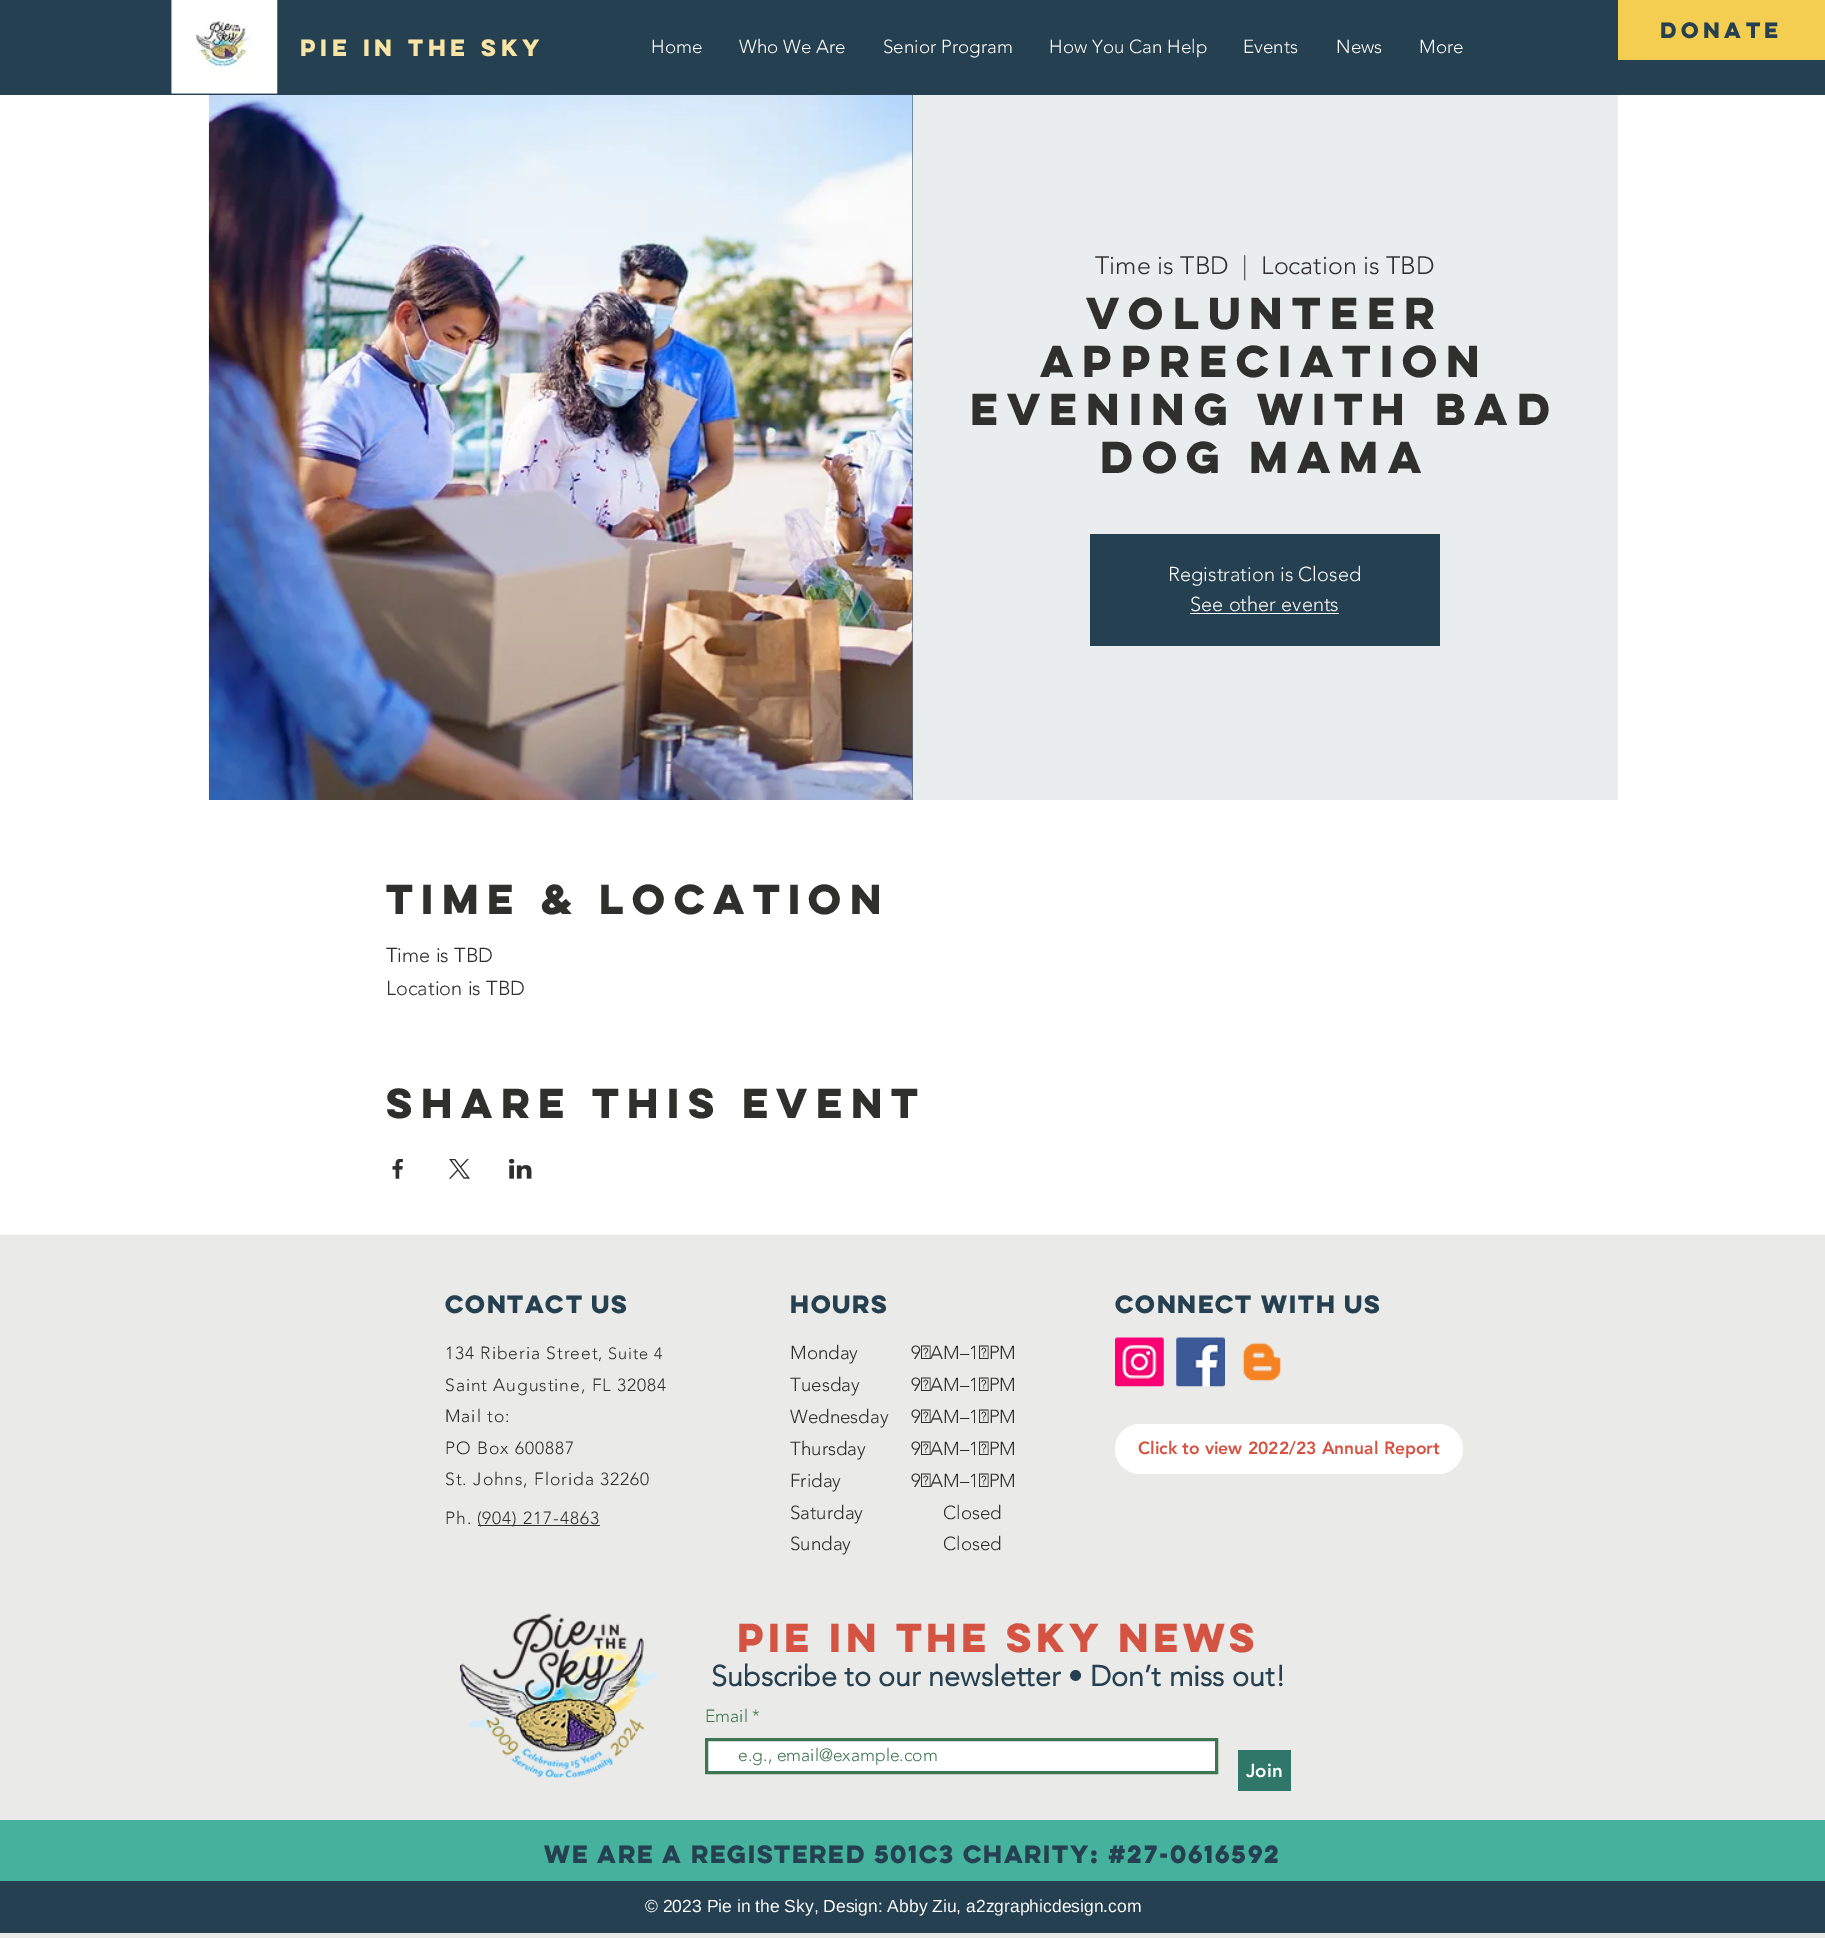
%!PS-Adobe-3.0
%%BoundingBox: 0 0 1825 1938
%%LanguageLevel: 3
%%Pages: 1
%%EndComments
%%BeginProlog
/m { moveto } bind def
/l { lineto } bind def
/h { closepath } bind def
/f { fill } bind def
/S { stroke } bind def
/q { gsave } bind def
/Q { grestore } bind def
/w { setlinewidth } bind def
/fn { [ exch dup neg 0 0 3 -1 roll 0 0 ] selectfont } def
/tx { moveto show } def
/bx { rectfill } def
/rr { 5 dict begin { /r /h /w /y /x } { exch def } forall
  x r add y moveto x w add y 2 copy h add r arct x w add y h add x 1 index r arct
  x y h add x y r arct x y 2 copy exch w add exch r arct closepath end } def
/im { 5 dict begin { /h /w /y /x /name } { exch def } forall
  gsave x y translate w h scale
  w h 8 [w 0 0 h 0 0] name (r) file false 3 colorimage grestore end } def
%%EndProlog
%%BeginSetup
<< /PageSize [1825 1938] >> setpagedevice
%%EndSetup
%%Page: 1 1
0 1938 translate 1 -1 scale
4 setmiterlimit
0.918 0.918 0.91 setrgbcolor
0 0 1825 1938 bx
0.145 0.255 0.318 setrgbcolor
0 0 1825 95 bx
0.957 0.808 0.314 setrgbcolor
1618 0 207 60 bx
/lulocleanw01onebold-Bold 20 fn
0.145 0.255 0.318 setrgbcolor
(DONATE) 1660 38 tx
(image0.raw) 171 0 107 94 im
/lulocleanw01onebold-Bold 21.25 fn
0.973 0.894 0.643 setrgbcolor
(pie in the sky) 300 56 tx
/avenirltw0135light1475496-Light 18.75 fn
1 setgray
(Home) 651 53 tx
(Who We Are) 739 53 tx
(Senior Program) 883 53 tx
(How You Can Help) 1049 53 tx
(Events) 1243 53 tx
(News) 1336 53 tx
(More) 1419 53 tx
0 95 1825 1140 bx
0.357 0.439 0.486 setrgbcolor
912 95 1 705 bx
(image1.raw) 208 95 705 705 im
0.918 0.929 0.933 setrgbcolor
913 95 705 705 bx
/avenirltw0135light1475496-Light 25 fn
0.184 0.184 0.18 setrgbcolor
(Time is TBD) 1095 274 tx
(|) 1242 274 tx
(Location is TBD) 1261 274 tx
/lulocleanw01onebold-Bold 40 fn
(Volunteer) 1086 329 tx
(Appreciation) 1040 377 tx
(Evening with Bad) 970 425 tx
(Dog Mama) 1100 473 tx
0.145 0.255 0.318 setrgbcolor
1090 534 350 112 bx
/avenirltw0135light1475496-Light 20 fn
1 setgray
(Registration is Closed) 1168 581 tx
(See other events) 1190 611 tx
1190 613 149 1 bx
/lulocleanw01onebold-Bold 37.5 fn
0.184 0.184 0.18 setrgbcolor
(Time & Location) 386 914 tx
/avenirltw0135light1475496-Light 20 fn
(Time is TBD) 386 962 tx
(Location is TBD) 386 995 tx
/lulocleanw01onebold-Bold 37.5 fn
(Share this event) 386 1118 tx
(image2.raw) 392 1159 11 20 im
(image3.raw) 449 1159 21 20 im
(image4.raw) 509 1159 23 20 im
/lulocleanw01onebold-Bold 22.5 fn
0.145 0.255 0.318 setrgbcolor
445 1313 m -3.4 0 (Contact Us) ashow
790 1313 m -3.4 0 (hours) ashow
1115 1313 m -3.4 0 (Connect with us) ashow
/avenirltw0135light1475496-Light 17.5 fn
0.184 0.184 0.18 setrgbcolor
445 1359 m 0.9 0 (134 Riberia Street) ashow
/avenirltw0135light1475496-Light 16.25 fn
598 1359 m 0.9 0 (, Suite 4) ashow
/avenirltw0135light1475496-Light 17.5 fn
445 1391 m 0.9 0 (Saint Augustine, FL 32084) ashow
445 1422 m 0.9 0 (Mail to:) ashow
445 1454 m 0.9 0 (PO Box 600887) ashow
445 1485 m 0.9 0 (St. Johns, Florida 32260) ashow
445 1524 m 0.9 0 (Ph.) ashow
478 1525 122 1 bx
477 1524 m 0.9 0 (\(904\) 217-4863) ashow
/avenirltw0135light1475496-Light 18.75 fn
(Monday) 790 1359 tx
(Tuesday) 790 1391 tx
(Wednesday) 790 1423 tx
(Thursday) 790 1455 tx
(Friday) 790 1487 tx
(Saturday) 790 1519 tx
(Sunday) 790 1550 tx
(9 AM–1 PM) 911 1359 tx
(9 AM–1 PM) 911 1391 tx
(9 AM–1 PM) 911 1423 tx
(9 AM–1 PM) 911 1455 tx
(9 AM–1 PM) 911 1487 tx
(Closed) 943 1519 tx
(Closed) 943 1550 tx
(image5.raw) 1115 1337 49 50 im
(image6.raw) 1176 1337 49 50 im
(image7.raw) 1242 1342 40 40 im
1 setgray
1115 1424 348 50 25 rr f
/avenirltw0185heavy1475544-Black 17.5 fn
0.835 0.325 0.259 setrgbcolor
(Click to view 2022/23 Annual Report) 1138 1454 tx
(image8.raw) 460 1613 198 165 im
/lulocleanw01onebold-Bold 36.25 fn
737 1652 m -3.6 0 (pie in the sky news) ashow
/avenirltw0135light1475496-Bold 28.75 fn
0.145 0.255 0.318 setrgbcolor
(Subscribe to our newsletter • Don’t miss out!) 711 1686 tx
/avenirltw0135light1475496-Light 17.5 fn
0.247 0.463 0.322 setrgbcolor
(Email *) 705 1722 tx
1 setgray
706.5 1739.5 m 1216.5 1739.5 l 1216.5 1772.5 l 706.5 1772.5 l h q f Q
0.247 0.463 0.322 setrgbcolor
3 w
S
(e.g., email@example.com) 738 1761 tx
0.18 0.467 0.412 setrgbcolor
1238 1750 53 41 bx
/avenirltw0185heavy1475544-Black 18.75 fn
1 setgray
(Join) 1246 1777 tx
0.271 0.698 0.616 setrgbcolor
0 1820 1825 61 bx
/lulocleanw01onebold-Bold 22.5 fn
0.145 0.255 0.318 setrgbcolor
544 1863 m -3.4 0 (we are a registered 501c3 Charity: #27-0616592) ashow
0 1881 1825 52 bx
/LiberationSans-Regular 17.5 fn
1 setgray
(© 2023 Pie in the Sky, Design: Abby Ziu, a2zgraphicdesign.com) 645 1912 tx
showpage
%%EOF
